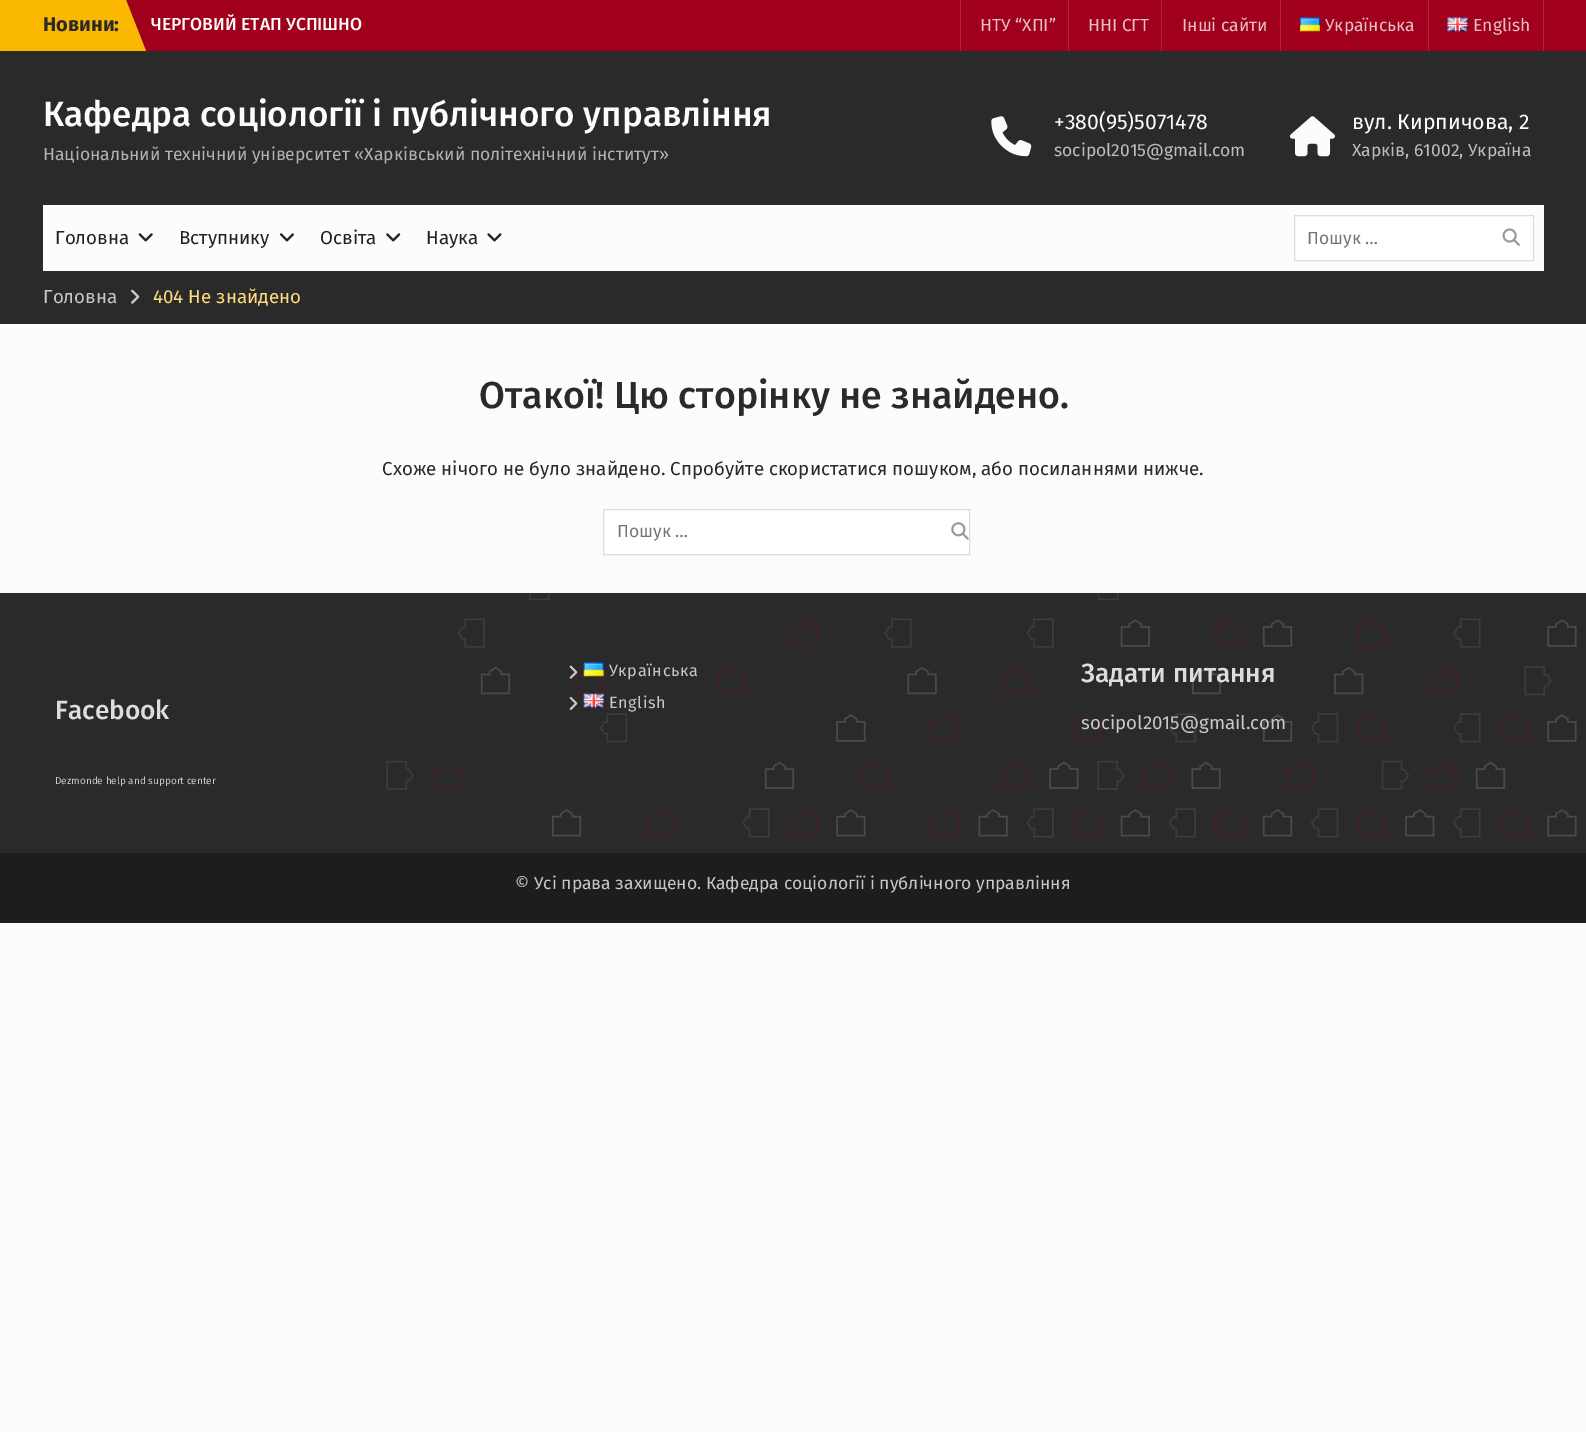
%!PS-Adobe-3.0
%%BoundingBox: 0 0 1586 1432
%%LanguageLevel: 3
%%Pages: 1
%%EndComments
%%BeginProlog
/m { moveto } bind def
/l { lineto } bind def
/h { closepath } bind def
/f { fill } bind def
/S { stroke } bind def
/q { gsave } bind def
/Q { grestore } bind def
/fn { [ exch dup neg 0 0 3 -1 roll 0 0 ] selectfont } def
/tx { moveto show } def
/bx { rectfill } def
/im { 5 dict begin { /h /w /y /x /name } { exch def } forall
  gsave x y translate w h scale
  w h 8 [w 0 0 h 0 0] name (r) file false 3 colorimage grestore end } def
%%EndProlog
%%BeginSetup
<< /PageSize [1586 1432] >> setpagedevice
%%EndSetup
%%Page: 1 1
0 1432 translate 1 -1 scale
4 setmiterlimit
0.988 setgray
0 0 1586 1432 bx
0.627 0 0.106 setrgbcolor
126 0 1460 51 bx
0.984 0.722 0 setrgbcolor
0 0 126 51 bx
/FiraSans-Bold 20 fn
0.165 setgray
(Новини:) 43 31 tx
0.984 0.722 0 setrgbcolor
126 51 m 126 0 l 146 51 l h f
/FiraSans-Medium 17.5 fn
0.988 setgray
(ЧЕРГОВИЙ ЕТАП УСПІШНО) 151 30 tx
0.682 0.149 0.239 setrgbcolor
1068 0 1 51 bx
960 0 1 51 bx
/FiraSans-Regular 17.5 fn
0.906 0.749 0.776 setrgbcolor
(НТУ “ХПІ”) 980 31 tx
0.682 0.149 0.239 setrgbcolor
1161 0 1 51 bx
0.906 0.749 0.776 setrgbcolor
(ННІ СГТ) 1088 31 tx
0.682 0.149 0.239 setrgbcolor
1280 0 1 51 bx
0.906 0.749 0.776 setrgbcolor
(Інші сайти) 1182 31 tx
0.682 0.149 0.239 setrgbcolor
1428 0 1 51 bx
(image0.raw) 1300 17 20 15 im
0.906 0.749 0.776 setrgbcolor
(Українська) 1325 31 tx
0.682 0.149 0.239 setrgbcolor
1543 0 1 51 bx
(image1.raw) 1447 17 21 15 im
0.906 0.749 0.776 setrgbcolor
(English) 1473 31 tx
0.165 setgray
0 51 1586 273 bx
/FiraSans-Medium 35 fn
0.988 setgray
(Кафедра соціології і публічного управління) 43 126 tx
/FiraSans-Regular 17.5 fn
0.698 setgray
(Національний технічний університет «Харківський політехнічний інститут») 43 160 tx
(image2.raw) 991 116 41 41 im
/FiraSans-Regular 21.25 fn
0.988 setgray
(+380\(95\)5071478) 1054 129 tx
/FiraSans-Regular 17.5 fn
0.741 setgray
(socipol2015@gmail.com) 1054 156 tx
(image3.raw) 1290 116 45 41 im
/FiraSans-Regular 21.25 fn
0.988 setgray
(вул. Кирпичова, 2) 1352 129 tx
/FiraSans-Regular 17.5 fn
0.741 setgray
(Харків, 61002, Україна) 1352 156 tx
0.988 setgray
43 205 1501 66 bx
/FiraSans-Regular 18.75 fn
0.133 setgray
(Головна) 55 244 tx
(image4.raw) 138 233 15 9 im
(Вступнику) 179 244 tx
(image5.raw) 279 233 15 9 im
(Освіта) 320 244 tx
(image6.raw) 386 233 15 9 im
(Наука) 426 244 tx
(image7.raw) 487 233 15 9 im
1 setgray
1294.5 215.5 m 1533.5 215.5 l 1533.5 260.5 l 1294.5 260.5 l h q f Q
0.867 setgray
S
/FiraSans-Regular 17.5 fn
0.459 setgray
(Пошук …) 1307 244 tx
(image8.raw) 1502 228 18 18 im
/FiraSans-Regular 18.75 fn
0.78 setgray
(Головна) 43 303 tx
(image9.raw) 131 289 9 15 im
0.996 0.859 0.498 setrgbcolor
(404 Не знайдено) 153 303 tx
/FiraSans-Medium 37.5 fn
0.165 setgray
(Отакої! Цю сторінку не знайдено.) 479 408 tx
/FiraSans-Regular 18.75 fn
(Схоже нічого не було знайдено. Спробуйте скористатися пошуком, або посиланнями нижче.) 382 475 tx
1 setgray
603.5 509.5 m 969.5 509.5 l 969.5 554.5 l 603.5 554.5 l h q f Q
0.867 setgray
S
/FiraSans-Regular 17.5 fn
0.459 setgray
(Пошук …) 617 537 tx
(image10.raw) 951 522 18 18 im
0.165 setgray
0 593 1586 260 bx
(image11.raw) 386 592 1191 246 im
/FiraSans-Medium 26.25 fn
0.867 setgray
(Facebook) 55 719 tx
/FiraSans-Regular 10 fn
0.78 setgray
(Dezmonde help and support center) 55 784 tx
(image12.raw) 569 665 9 14 im
(image13.raw) 583 662 21 15 im
/FiraSans-Regular 16.25 fn
609 676 m 0.6 0 (Українська) ashow
(image14.raw) 569 696 9 14 im
(image15.raw) 583 693 21 15 im
609 708 m 0.6 0 (English) ashow
/FiraSans-Medium 26.25 fn
0.867 setgray
(Задати питання) 1081 682 tx
/FiraSans-Regular 18.75 fn
0.78 setgray
(socipol2015@gmail.com) 1081 729 tx
0.114 setgray
0 853 1586 70 bx
/FiraSans-Regular 17.5 fn
0.78 setgray
(© Усі права захищено. Кафедра соціології і публічного управління) 515 889 tx
showpage
%%EOF
